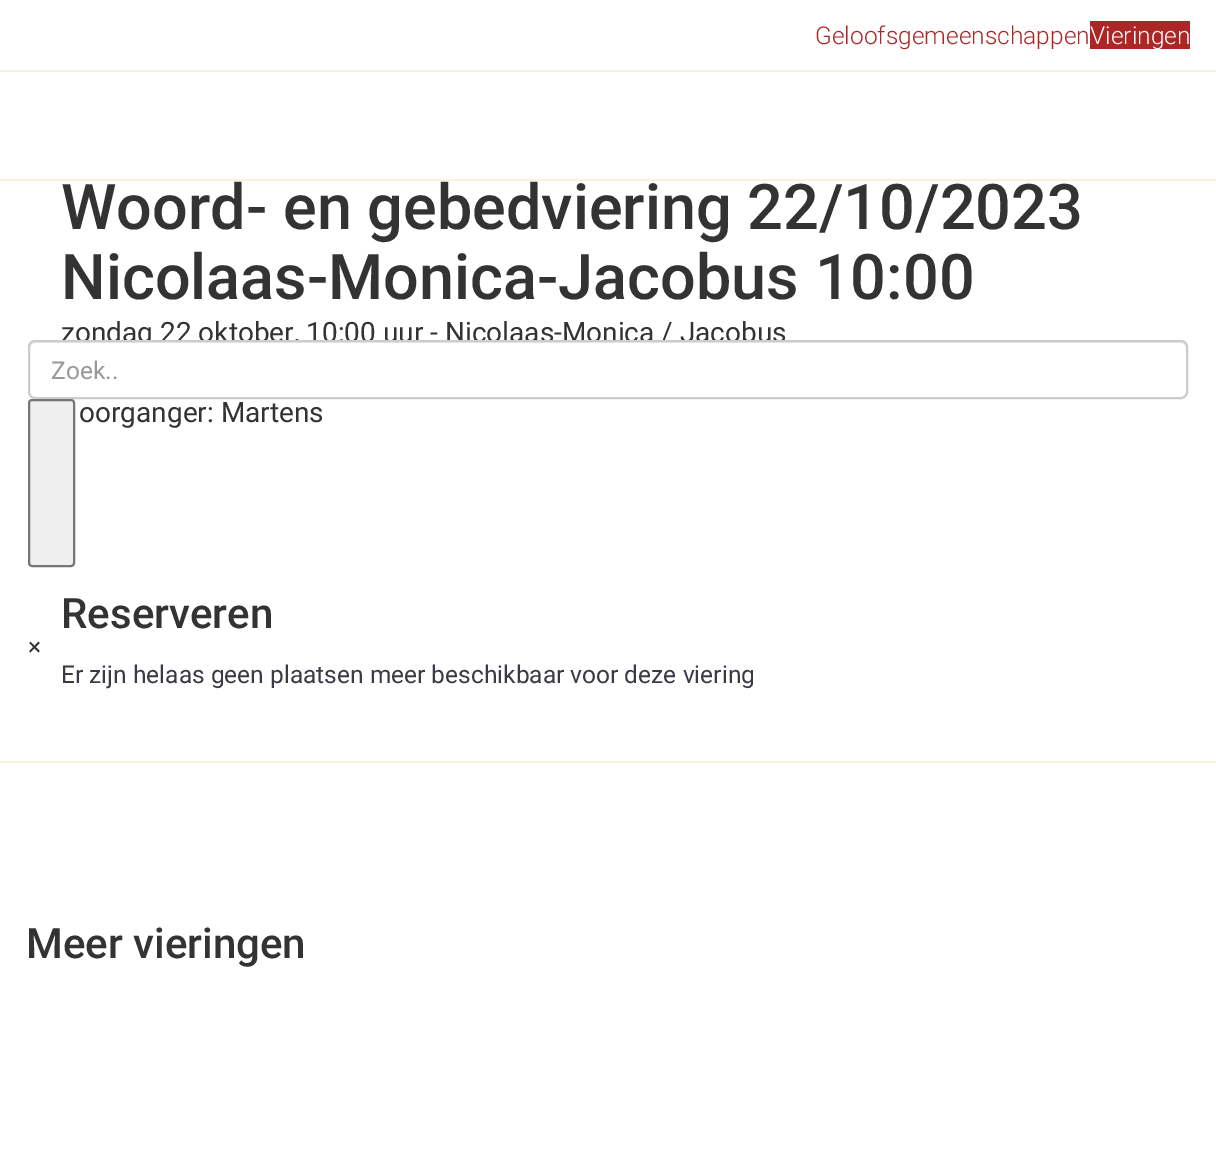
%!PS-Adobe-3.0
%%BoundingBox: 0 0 1216 1155
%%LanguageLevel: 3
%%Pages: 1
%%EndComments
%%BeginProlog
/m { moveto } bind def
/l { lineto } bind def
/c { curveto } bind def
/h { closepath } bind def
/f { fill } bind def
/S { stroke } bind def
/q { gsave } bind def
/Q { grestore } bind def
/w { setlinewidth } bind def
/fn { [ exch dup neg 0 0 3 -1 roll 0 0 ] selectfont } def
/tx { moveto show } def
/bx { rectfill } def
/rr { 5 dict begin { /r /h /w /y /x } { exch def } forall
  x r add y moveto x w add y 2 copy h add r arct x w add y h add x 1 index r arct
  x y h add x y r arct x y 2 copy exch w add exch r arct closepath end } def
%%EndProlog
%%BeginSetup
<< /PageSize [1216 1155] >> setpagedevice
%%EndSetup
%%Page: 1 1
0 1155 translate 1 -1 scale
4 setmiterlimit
1 setgray
0 0 1216 1155 bx
0.961 0.949 0.875 setrgbcolor
0 761 1216 2 bx
/Roboto-Light 24.5 fn
0.678 0.149 0.149 setrgbcolor
(Geloofsgemeenschappen) 815 44 tx
1090 21 100 28 bx
1 setgray
(Vieringen) 1090 44 tx
0.961 0.949 0.875 setrgbcolor
0 70 1216 2 bx
0 179 1216 2 bx
/Roboto-Regular 28 fn
0.2 setgray
(zondag 22 oktober, 10:00 uur - Nicolaas-Monica / Jacobus) 61 342 tx
1 setgray
28 340 1160 59 7 rr f
0.925 setgray
35 343 m 1181 343 l 1184 343 1186 345 1186 348 c 1186 395 l 1187 394 1187 393 1187 392 c 1187 346 l 1187 343 1185 341 1182 341 c 35 341 l 32 341 30 343 30 346 c 30 348 l 30 345 32 343 35 343 c h f
0.8 setgray
2 w
29 341 1158 57 6 rr S
/Roboto-Regular 24.5 fn
0.6 setgray
(Zoek..) 51 379 tx
0.937 setgray
29 400 45 166 3 rr q f Q
0.463 setgray
S
0.2 setgray
(×) 28 655 tx
/Roboto-Medium 63 fn
(Woord- en gebedviering 22/10/2023) 61 229 tx
(Nicolaas-Monica-Jacobus 10:00) 61 299 tx
/Roboto-Regular 28 fn
(oorganger: Martens) 79 422 tx
/Roboto-Medium 42 fn
(Reserveren) 61 628 tx
/Roboto-Regular 24.5 fn
0.227 0.227 0.267 setrgbcolor
(Er zijn helaas geen plaatsen meer beschikbaar voor deze viering) 61 683 tx
/Roboto-Medium 42 fn
0.2 setgray
(Meer vieringen) 26 958 tx
showpage
%%EOF
